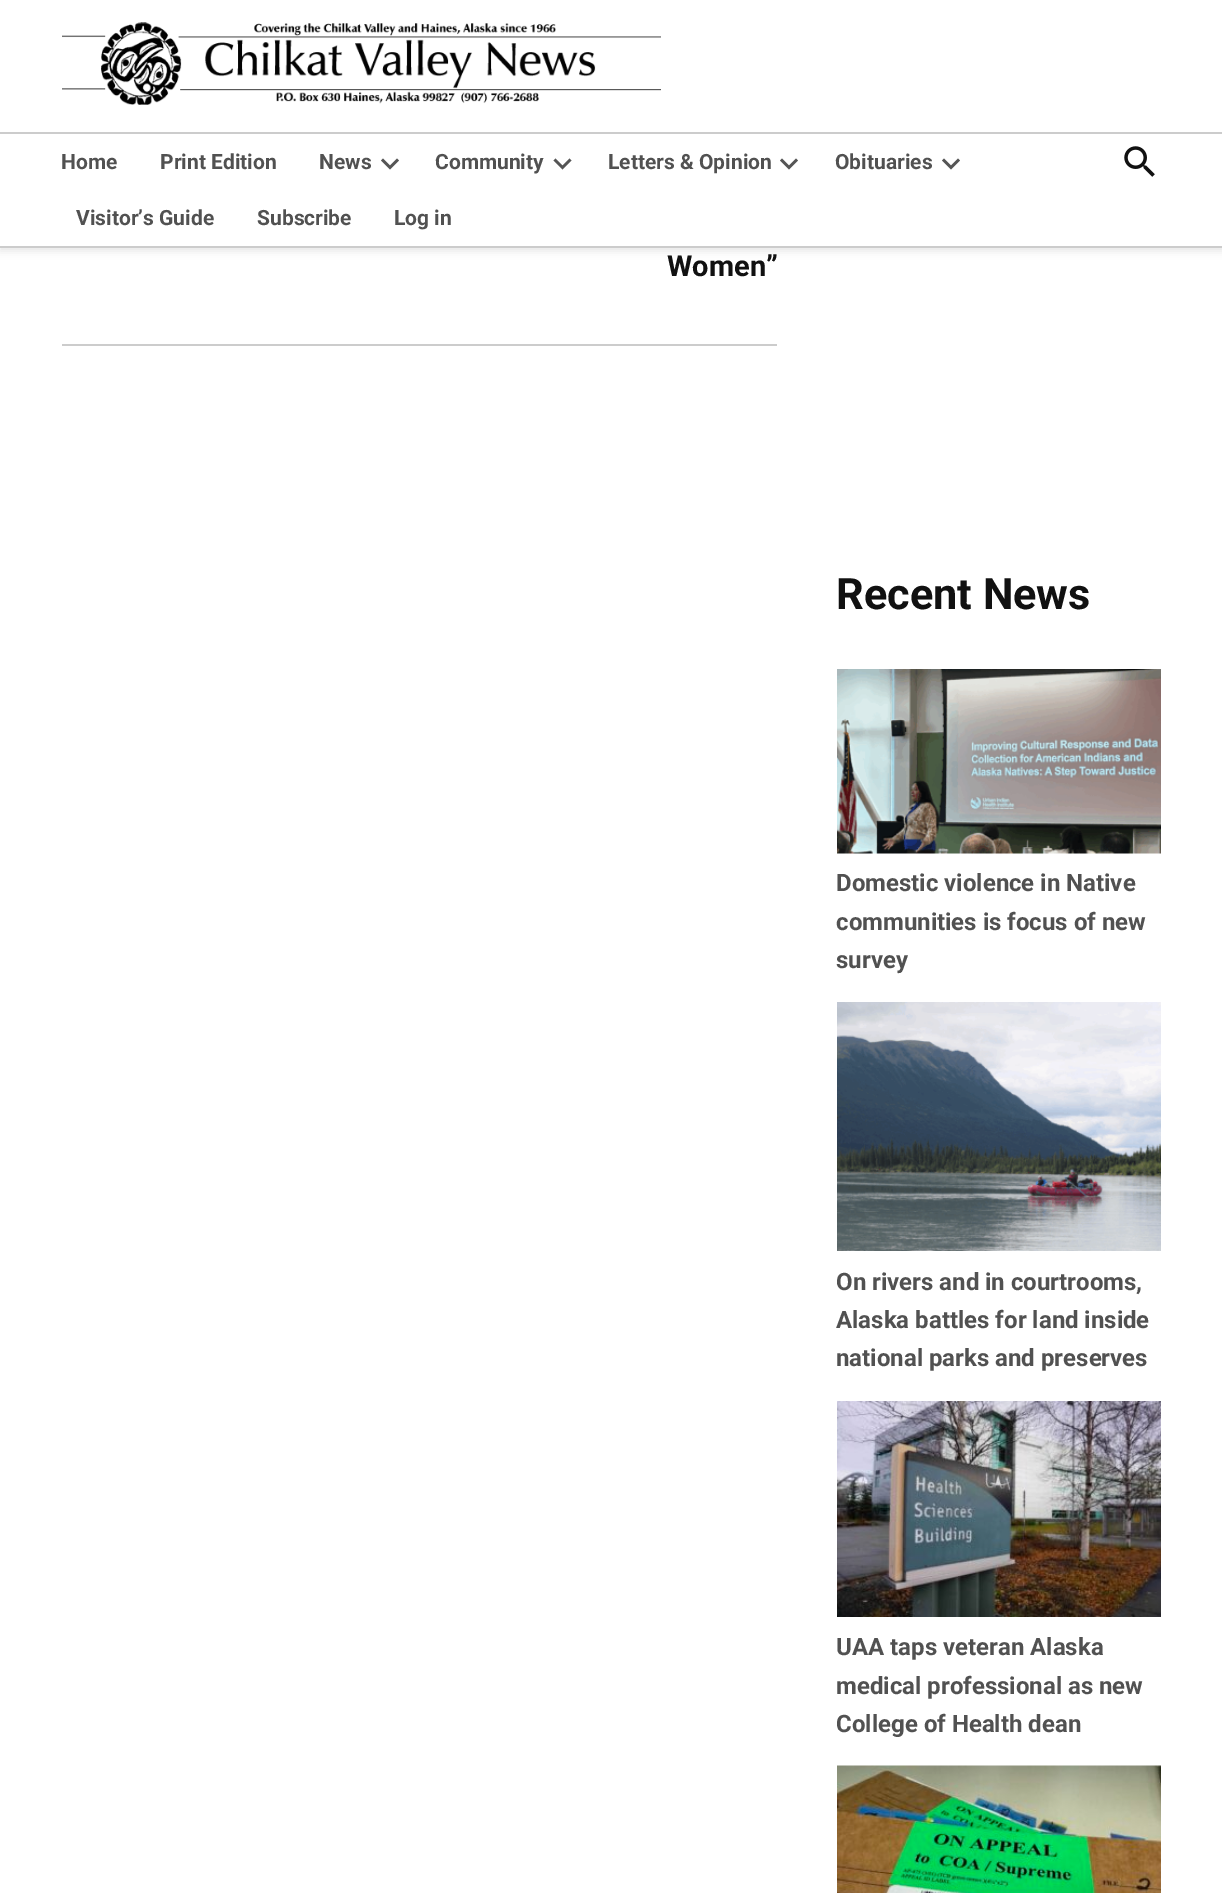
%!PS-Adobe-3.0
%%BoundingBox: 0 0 1222 1893
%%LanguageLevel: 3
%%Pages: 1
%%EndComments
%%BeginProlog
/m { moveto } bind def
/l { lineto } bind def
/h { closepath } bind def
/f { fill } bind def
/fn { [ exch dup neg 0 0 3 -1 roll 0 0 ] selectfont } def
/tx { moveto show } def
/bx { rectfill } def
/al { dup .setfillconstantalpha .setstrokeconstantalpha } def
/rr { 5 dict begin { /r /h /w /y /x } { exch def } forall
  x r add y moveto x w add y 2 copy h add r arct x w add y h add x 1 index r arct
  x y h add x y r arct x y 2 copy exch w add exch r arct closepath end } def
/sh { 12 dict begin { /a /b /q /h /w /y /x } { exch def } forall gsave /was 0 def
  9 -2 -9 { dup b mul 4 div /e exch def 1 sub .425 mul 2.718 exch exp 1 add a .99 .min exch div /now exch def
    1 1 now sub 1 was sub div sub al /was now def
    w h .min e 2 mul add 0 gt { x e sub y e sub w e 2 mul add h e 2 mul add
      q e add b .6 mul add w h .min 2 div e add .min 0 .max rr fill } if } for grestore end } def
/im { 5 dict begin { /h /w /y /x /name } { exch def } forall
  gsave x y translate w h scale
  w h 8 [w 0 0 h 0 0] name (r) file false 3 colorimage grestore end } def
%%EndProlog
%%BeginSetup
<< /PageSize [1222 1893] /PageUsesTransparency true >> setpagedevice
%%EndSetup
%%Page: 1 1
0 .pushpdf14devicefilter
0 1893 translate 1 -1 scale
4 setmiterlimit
1 setgray
0 0 1222 1893 bx
0 setgray
0 3 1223 248 0 4 0.1 sh
1 setgray
0 0 1222 246 bx
(image0.raw) 62 22 599 83 im
0.8 setgray
0 132 1222 2 bx
0 246 1222 2 bx
/Roboto-Bold 21 fn
0.318 setgray
(Home) 61 169 tx
(Print Edition) 160 169 tx
(News) 319 169 tx
0.333 setgray
383 158.5 m 390 165.5 l 397 158.5 l 399 160.5 l 390 169.5 l 381 160.5 l h f
0.318 setgray
(Community) 435 169 tx
0.333 setgray
555.5 158.5 m 562.5 165.5 l 569.5 158.5 l 571.5 160.5 l 562.5 169.5 l 553.5 160.5 l h f
0.318 setgray
(Letters & Opinion) 608 169 tx
0.333 setgray
782 158.5 m 789 165.5 l 796 158.5 l 798 160.5 l 789 169.5 l 780 160.5 l h f
0.318 setgray
(Obituaries) 835 169 tx
0.333 setgray
944 158.5 m 951 165.5 l 958 158.5 l 960 160.5 l 951 169.5 l 942 160.5 l h f
0.318 setgray
(Visitor’s Guide) 76 225 tx
(Subscribe) 257 225 tx
(Log in) 394 225 tx
(image1.raw) 1124 146 31 31 im
0.8 setgray
62 344 715 2 bx
/Roboto-Bold 29 fn
0.067 setgray
(Women”) 667 276 tx
/Roboto-Bold 43.25 fn
(Recent News) 836 609 tx
(image2.raw) 837 669 324 185 im
/Roboto-Bold 24 fn
0.318 setgray
(Domestic violence in Native) 836 891 tx
(communities is focus of new) 836 930 tx
(survey) 836 968 tx
(image3.raw) 837 1002 324 249 im
(On rivers and in courtrooms,) 836 1290 tx
(Alaska battles for land inside) 836 1328 tx
(national parks and preserves) 836 1366 tx
(image4.raw) 837 1401 324 216 im
(UAA taps veteran Alaska) 836 1655 tx
(medical professional as new) 836 1694 tx
(College of Health dean) 836 1732 tx
(image5.raw) 837 1765 324 128 im
.poppdf14devicefilter showpage
%%EOF
